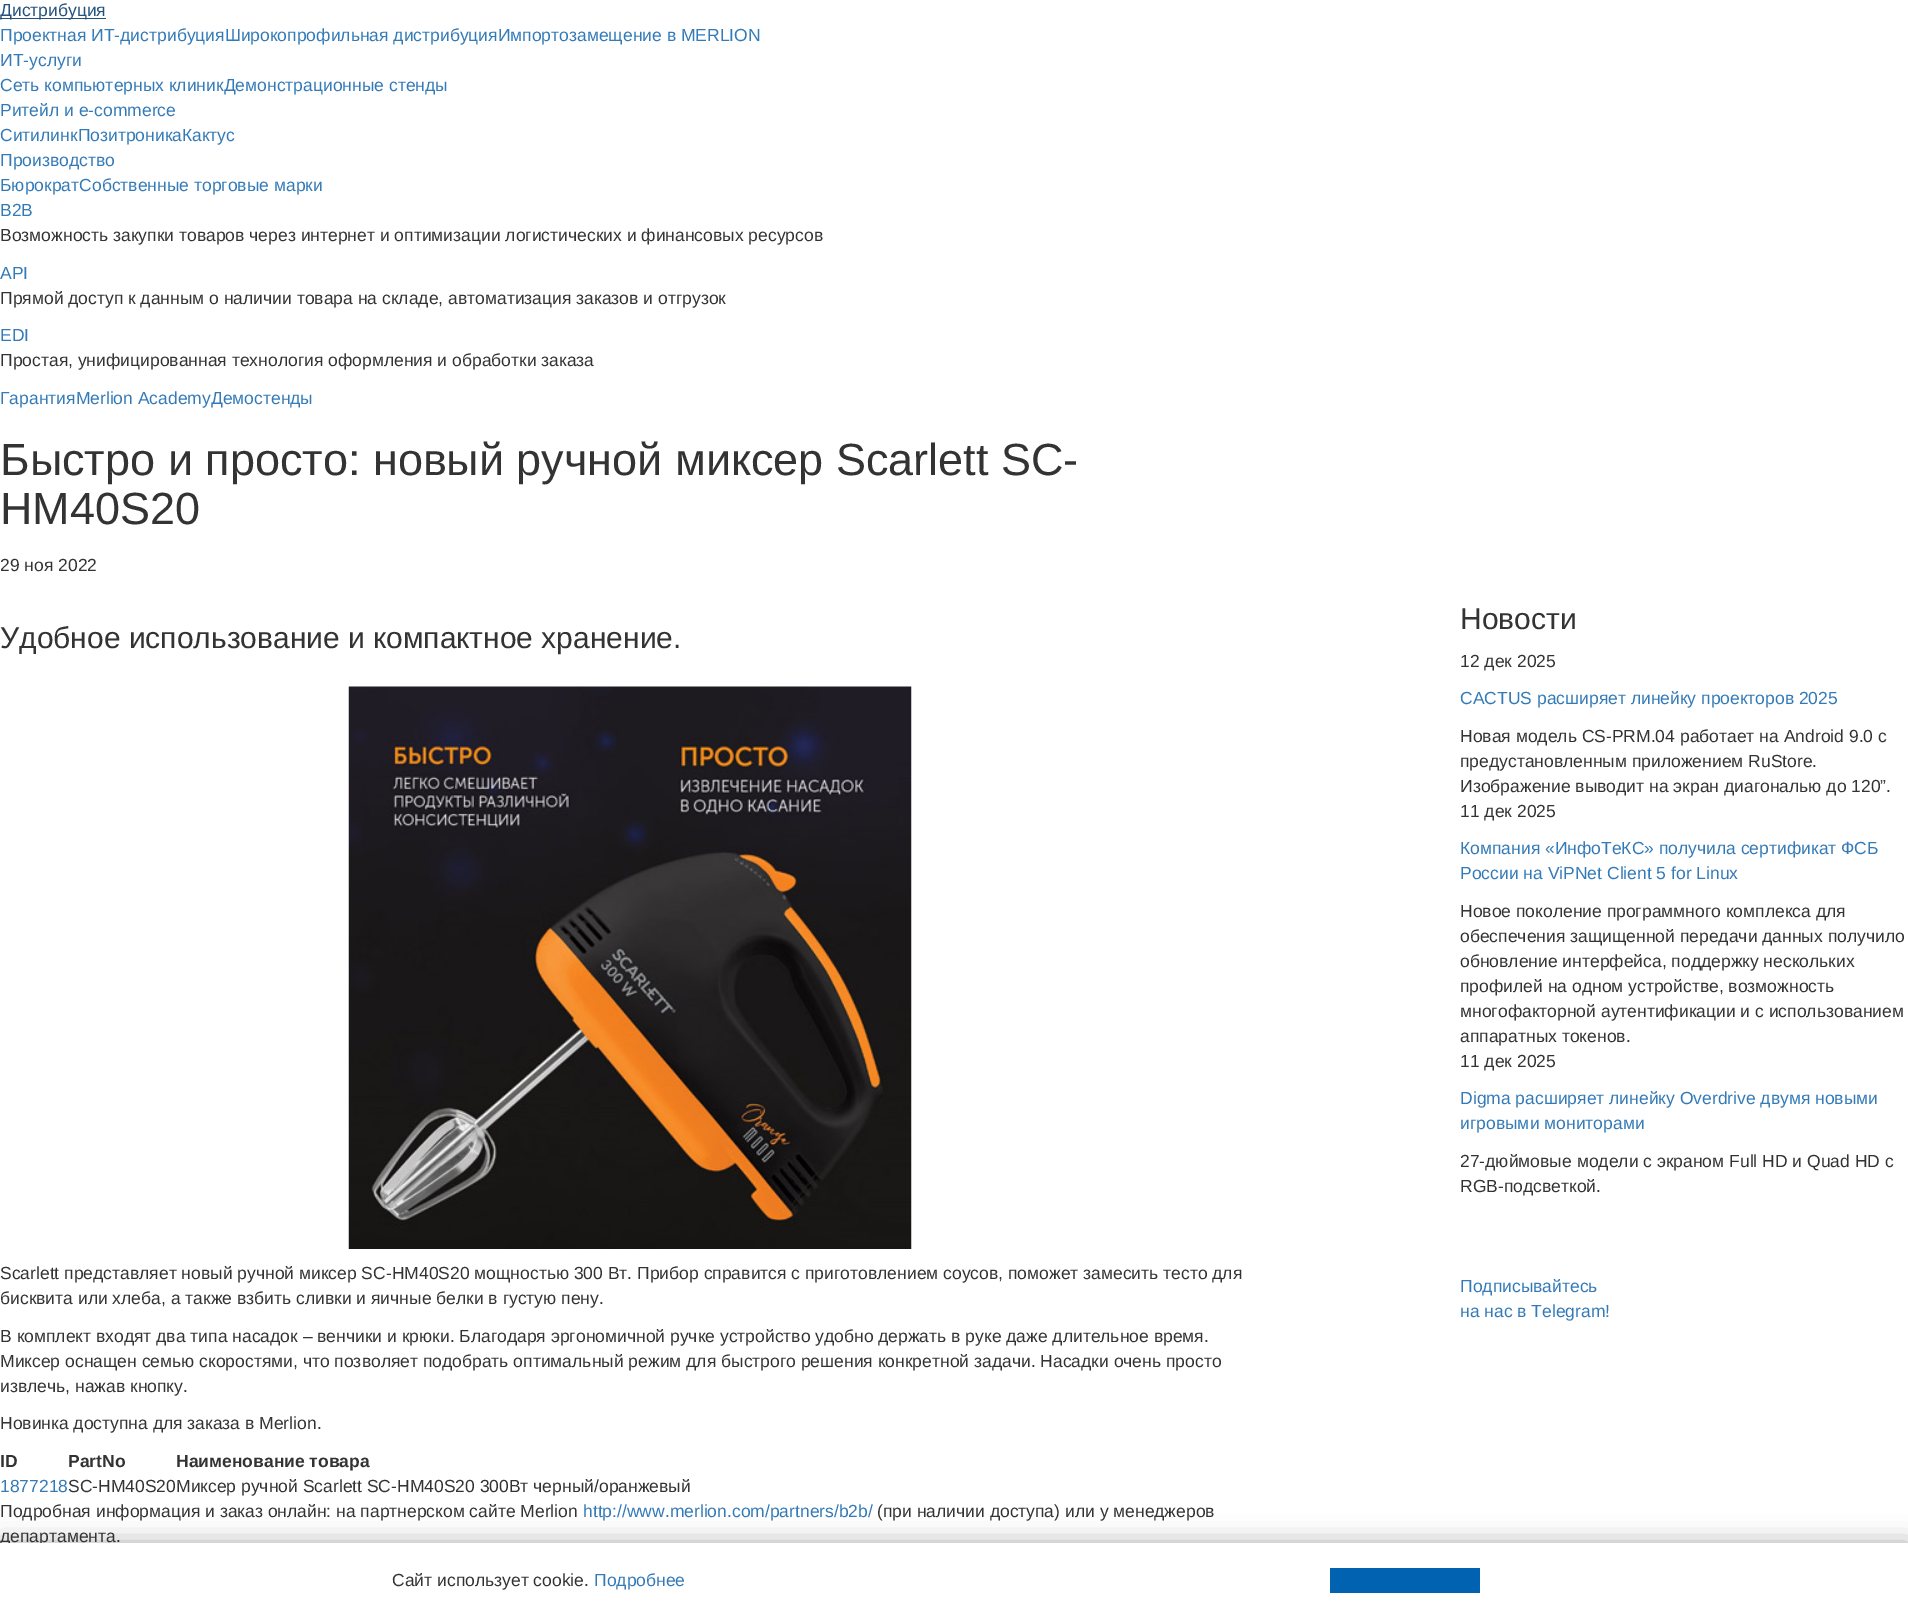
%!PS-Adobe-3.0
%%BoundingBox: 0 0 1908 1617
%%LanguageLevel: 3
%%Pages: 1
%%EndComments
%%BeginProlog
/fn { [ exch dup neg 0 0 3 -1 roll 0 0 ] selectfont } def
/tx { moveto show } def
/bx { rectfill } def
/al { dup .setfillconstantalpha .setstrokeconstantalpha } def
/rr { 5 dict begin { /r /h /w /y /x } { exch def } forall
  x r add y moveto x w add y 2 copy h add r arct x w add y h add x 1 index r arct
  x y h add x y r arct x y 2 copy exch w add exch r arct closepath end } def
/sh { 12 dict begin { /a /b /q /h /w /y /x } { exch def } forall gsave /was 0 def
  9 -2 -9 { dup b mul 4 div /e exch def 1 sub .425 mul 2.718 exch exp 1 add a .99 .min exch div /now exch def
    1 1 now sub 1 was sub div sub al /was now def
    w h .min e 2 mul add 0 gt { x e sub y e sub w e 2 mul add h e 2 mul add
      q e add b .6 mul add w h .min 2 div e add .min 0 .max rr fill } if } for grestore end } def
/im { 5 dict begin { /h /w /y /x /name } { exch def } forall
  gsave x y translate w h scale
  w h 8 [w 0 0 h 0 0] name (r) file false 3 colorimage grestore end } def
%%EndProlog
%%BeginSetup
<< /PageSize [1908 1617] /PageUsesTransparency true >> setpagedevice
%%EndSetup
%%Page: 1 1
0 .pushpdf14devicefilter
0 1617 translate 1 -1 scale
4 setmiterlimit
1 setgray
0 0 1908 1617 bx
0.137 0.322 0.486 setrgbcolor
0 18 106 1 bx
/LiberationSans-Regular 17.5 fn
(Дистрибуция) 0 16 tx
0.2 0.478 0.718 setrgbcolor
(Проектная ИТ-дистрибуцияШирокопрофильная дистрибуцияИмпортозамещение в MERLION) 0 41 tx
(ИТ-услуги) 0 66 tx
(Сеть компьютерных клиникДемонстрационные стенды) 0 91 tx
(Ритейл и e-commerce) 0 116 tx
(СитилинкПозитроникаКактус) 0 141 tx
(Производство) 0 166 tx
(БюрократСобственные торговые марки) 0 191 tx
(B2B) 0 216 tx
0.2 setgray
(Возможность закупки товаров через интернет и оптимизации логистических и финансовых ресурсов) 0 241 tx
0.2 0.478 0.718 setrgbcolor
(API) 0 279 tx
0.2 setgray
(Прямой доступ к данным о наличии товара на складе, автоматизация заказов и отгрузок) 0 304 tx
0.2 0.478 0.718 setrgbcolor
(EDI) 0 341 tx
0.2 setgray
(Простая, унифицированная технология оформления и обработки заказа) 0 366 tx
0.2 0.478 0.718 setrgbcolor
(ГарантияMerlion AcademyДемостенды) 0 404 tx
/LiberationSans-Regular 45 fn
0.2 setgray
(Быстро и просто: новый ручной миксер Scarlett SC-) 0 475 tx
(HM40S20) 0 524 tx
/LiberationSans-Regular 17.5 fn
(29 ноя 2022) 0 571 tx
/LiberationSans-Regular 30 fn
(Удобное использование и компактное хранение.) 0 648 tx
(image0.raw) 348 686 564 563 im
/LiberationSans-Regular 17.5 fn
(Scarlett представляет новый ручной миксер SC-HM40S20 мощностью 300 Вт. Прибор справится с приготовлением соусов, поможет замесить тесто для) 0 1279 tx
(бисквита или хлеба, а также взбить сливки и яичные белки в густую пену.) 0 1304 tx
(В комплект входят два типа насадок – венчики и крюки. Благодаря эргономичной ручке устройство удобно держать в руке даже длительное время.) 0 1342 tx
(Миксер оснащен семью скоростями, что позволяет подобрать оптимальный режим для быстрого решения конкретной задачи. Насадки очень просто) 0 1367 tx
(извлечь, нажав кнопку.) 0 1392 tx
(Новинка доступна для заказа в Merlion.) 0 1429 tx
/LiberationSans-Bold 17.5 fn
(ID) 0 1467 tx
(PartNo) 68 1467 tx
(Наименование товара) 176 1467 tx
/LiberationSans-Regular 17.5 fn
0.2 0.478 0.718 setrgbcolor
(1877218) 0 1492 tx
0.2 setgray
(SC-HM40S20Миксер ручной Scarlett SC-HM40S20 300Вт черный/оранжевый) 68 1492 tx
(Подробная информация и заказ онлайн: на партнерском сайте Merlion) 0 1517 tx
0.2 0.478 0.718 setrgbcolor
(http://www.merlion.com/partners/b2b/) 583 1517 tx
0.2 setgray
(\(при наличии доступа\) или у менеджеров) 877 1517 tx
(департамента.) 0 1542 tx
/LiberationSans-Regular 30 fn
(Новости) 1460 629 tx
/LiberationSans-Regular 17.5 fn
(12 дек 2025) 1460 667 tx
0.2 0.478 0.718 setrgbcolor
(CACTUS расширяет линейку проекторов 2025) 1460 704 tx
0.2 setgray
(Новая модель CS-PRM.04 работает на Android 9.0 с) 1460 742 tx
(предустановленным приложением RuStore.) 1460 767 tx
(Изображение выводит на экран диагональю до 120”.) 1460 792 tx
(11 дек 2025) 1460 817 tx
0.2 0.478 0.718 setrgbcolor
(Компания «ИнфоТеКС» получила сертификат ФСБ) 1460 854 tx
(России на ViPNet Client 5 for Linux) 1460 879 tx
0.2 setgray
(Новое поколение программного комплекса для) 1460 917 tx
(обеспечения защищенной передачи данных получило) 1460 942 tx
(обновление интерфейса, поддержку нескольких) 1460 967 tx
(профилей на одном устройстве, возможность) 1460 992 tx
(многофакторной аутентификации и с использованием) 1460 1017 tx
(аппаратных токенов.) 1460 1042 tx
(11 дек 2025) 1460 1067 tx
0.2 0.478 0.718 setrgbcolor
(Digma расширяет линейку Overdrive двумя новыми) 1460 1104 tx
(игровыми мониторами) 1460 1129 tx
0.2 setgray
(27-дюймовые модели с экраном Full HD и Quad HD с) 1460 1167 tx
(RGB-подсветкой.) 1460 1192 tx
0.2 0.478 0.718 setrgbcolor
(Подписывайтесь) 1460 1292 tx
(на нас в Telegram!) 1460 1317 tx
0.196 setgray
0 1543 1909 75 0 12.5 0.41 sh
1 setgray
0 1543 1908 74 bx
0.2 setgray
(Сайт использует cookie.) 392 1586 tx
0.2 0.478 0.718 setrgbcolor
(Подробнее) 594 1586 tx
0 0.384 0.694 setrgbcolor
1330 1568 150 25 bx
.poppdf14devicefilter showpage
%%EOF
